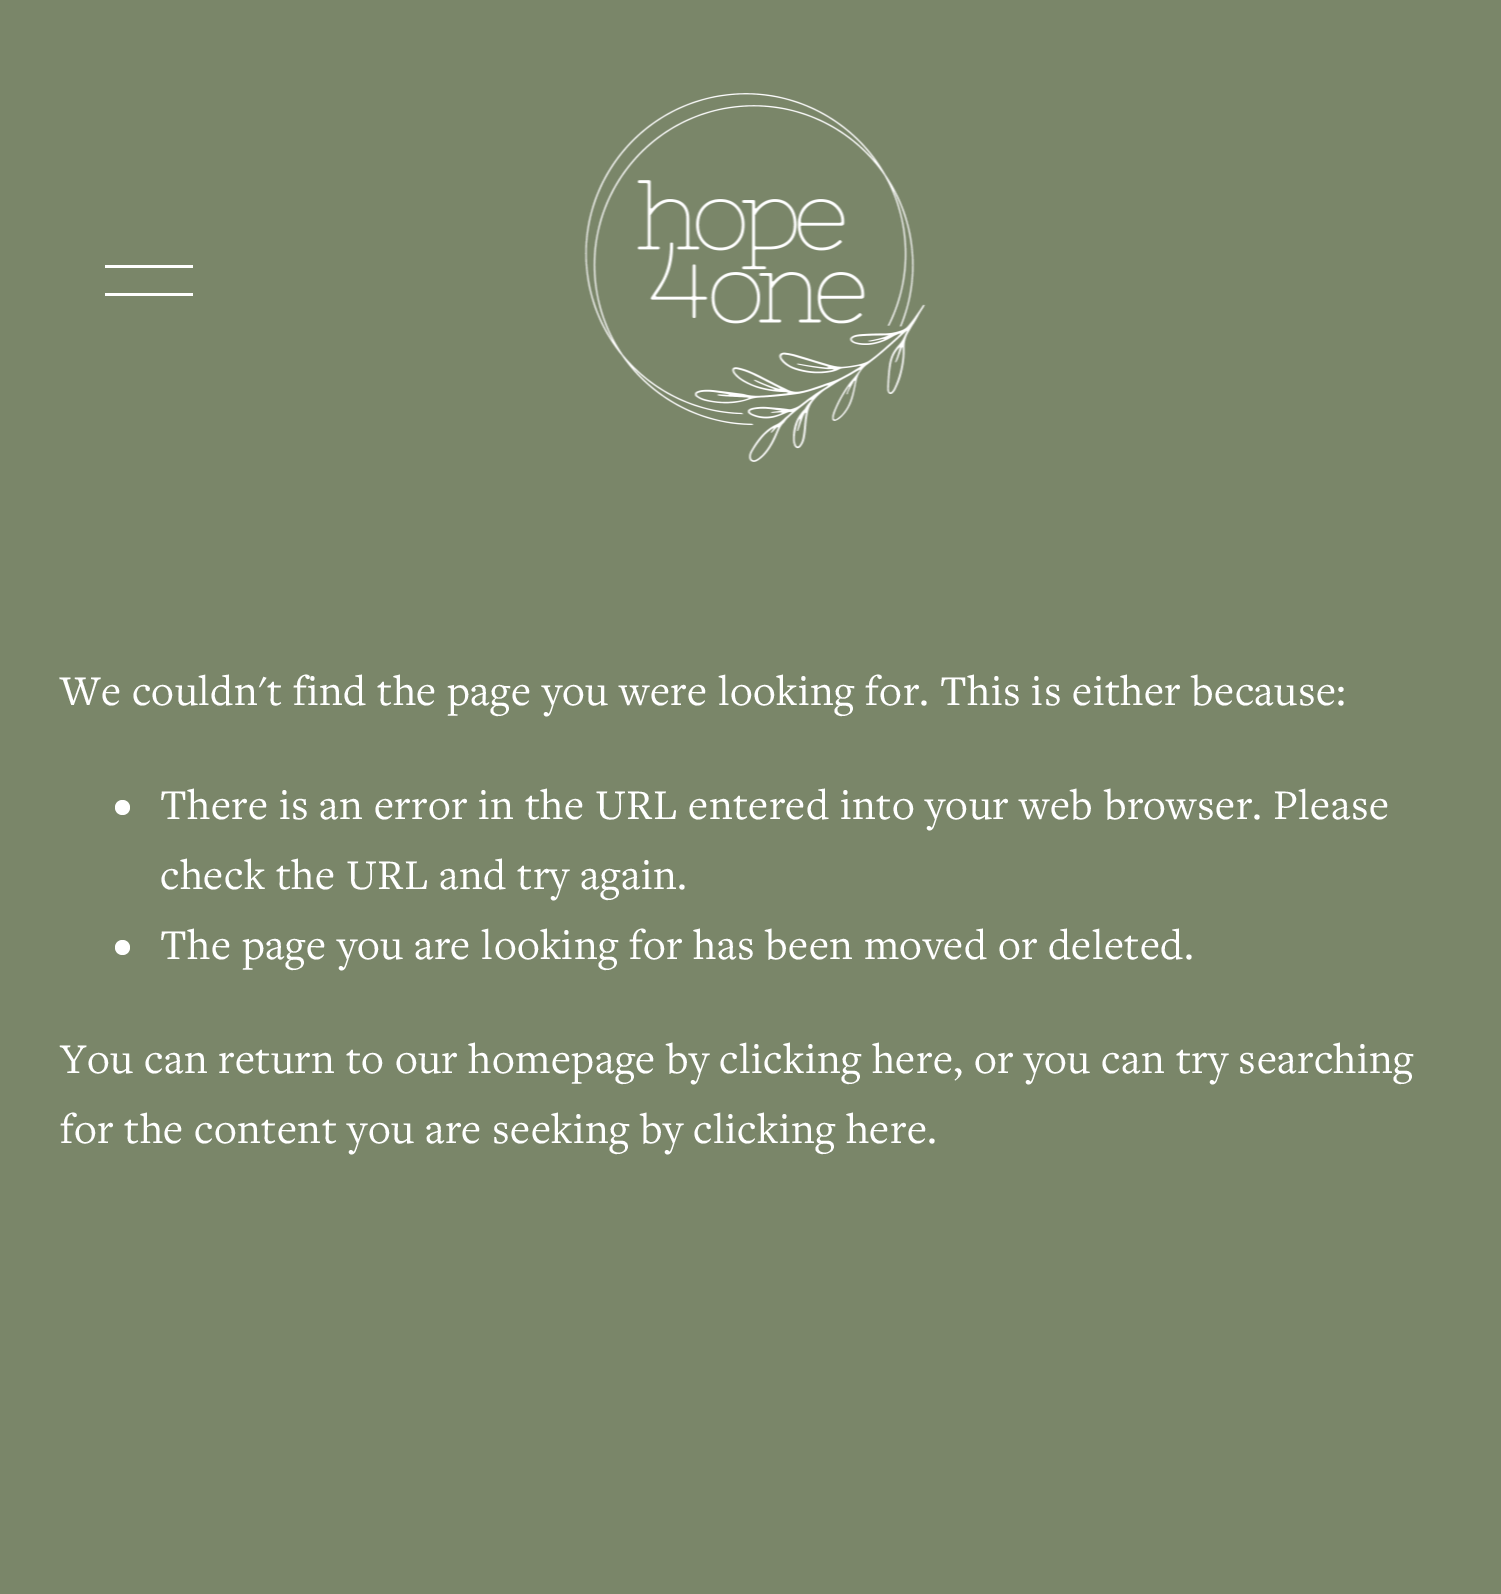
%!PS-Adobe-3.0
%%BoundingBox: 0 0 1501 1594
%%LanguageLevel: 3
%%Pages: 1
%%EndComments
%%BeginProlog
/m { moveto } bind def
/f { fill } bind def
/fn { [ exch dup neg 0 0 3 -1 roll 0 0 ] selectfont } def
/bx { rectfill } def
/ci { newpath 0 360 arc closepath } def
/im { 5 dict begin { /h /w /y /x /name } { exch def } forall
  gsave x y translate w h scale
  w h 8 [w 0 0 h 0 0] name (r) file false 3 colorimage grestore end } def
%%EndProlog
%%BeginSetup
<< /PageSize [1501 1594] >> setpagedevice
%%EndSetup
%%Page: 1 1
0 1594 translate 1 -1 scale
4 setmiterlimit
0.478 0.525 0.412 setrgbcolor
0 0 1501 1594 bx
1 setgray
105 265 88 3 bx
105 293 88 3 bx
(image0.raw) 584 93 342 369 im
/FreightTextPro-Regular 43.8 fn
60 705 m 0.45 0 (We couldn't find the page you were looking for. This is either because:) ashow
122.5 807.5 7.5 ci f
160 819 m 0.45 0 (There is an error in the URL entered into your web browser. Please) ashow
160 889 m 0.45 0 (check the URL and try again.) ashow
122.5 947.5 7.5 ci f
160 959 m 0.45 0 (The page you are looking for has been moved or deleted.) ashow
60 1073 m 0.45 0 (You can return to our homepage by) ashow
719 1073 m 0.45 0 (clicking here, or you can try searching) ashow
60 1143 m 0.45 0 (for the content you are seeking by) ashow
693 1143 m 0.45 0 (clicking here.) ashow
showpage
%%EOF
